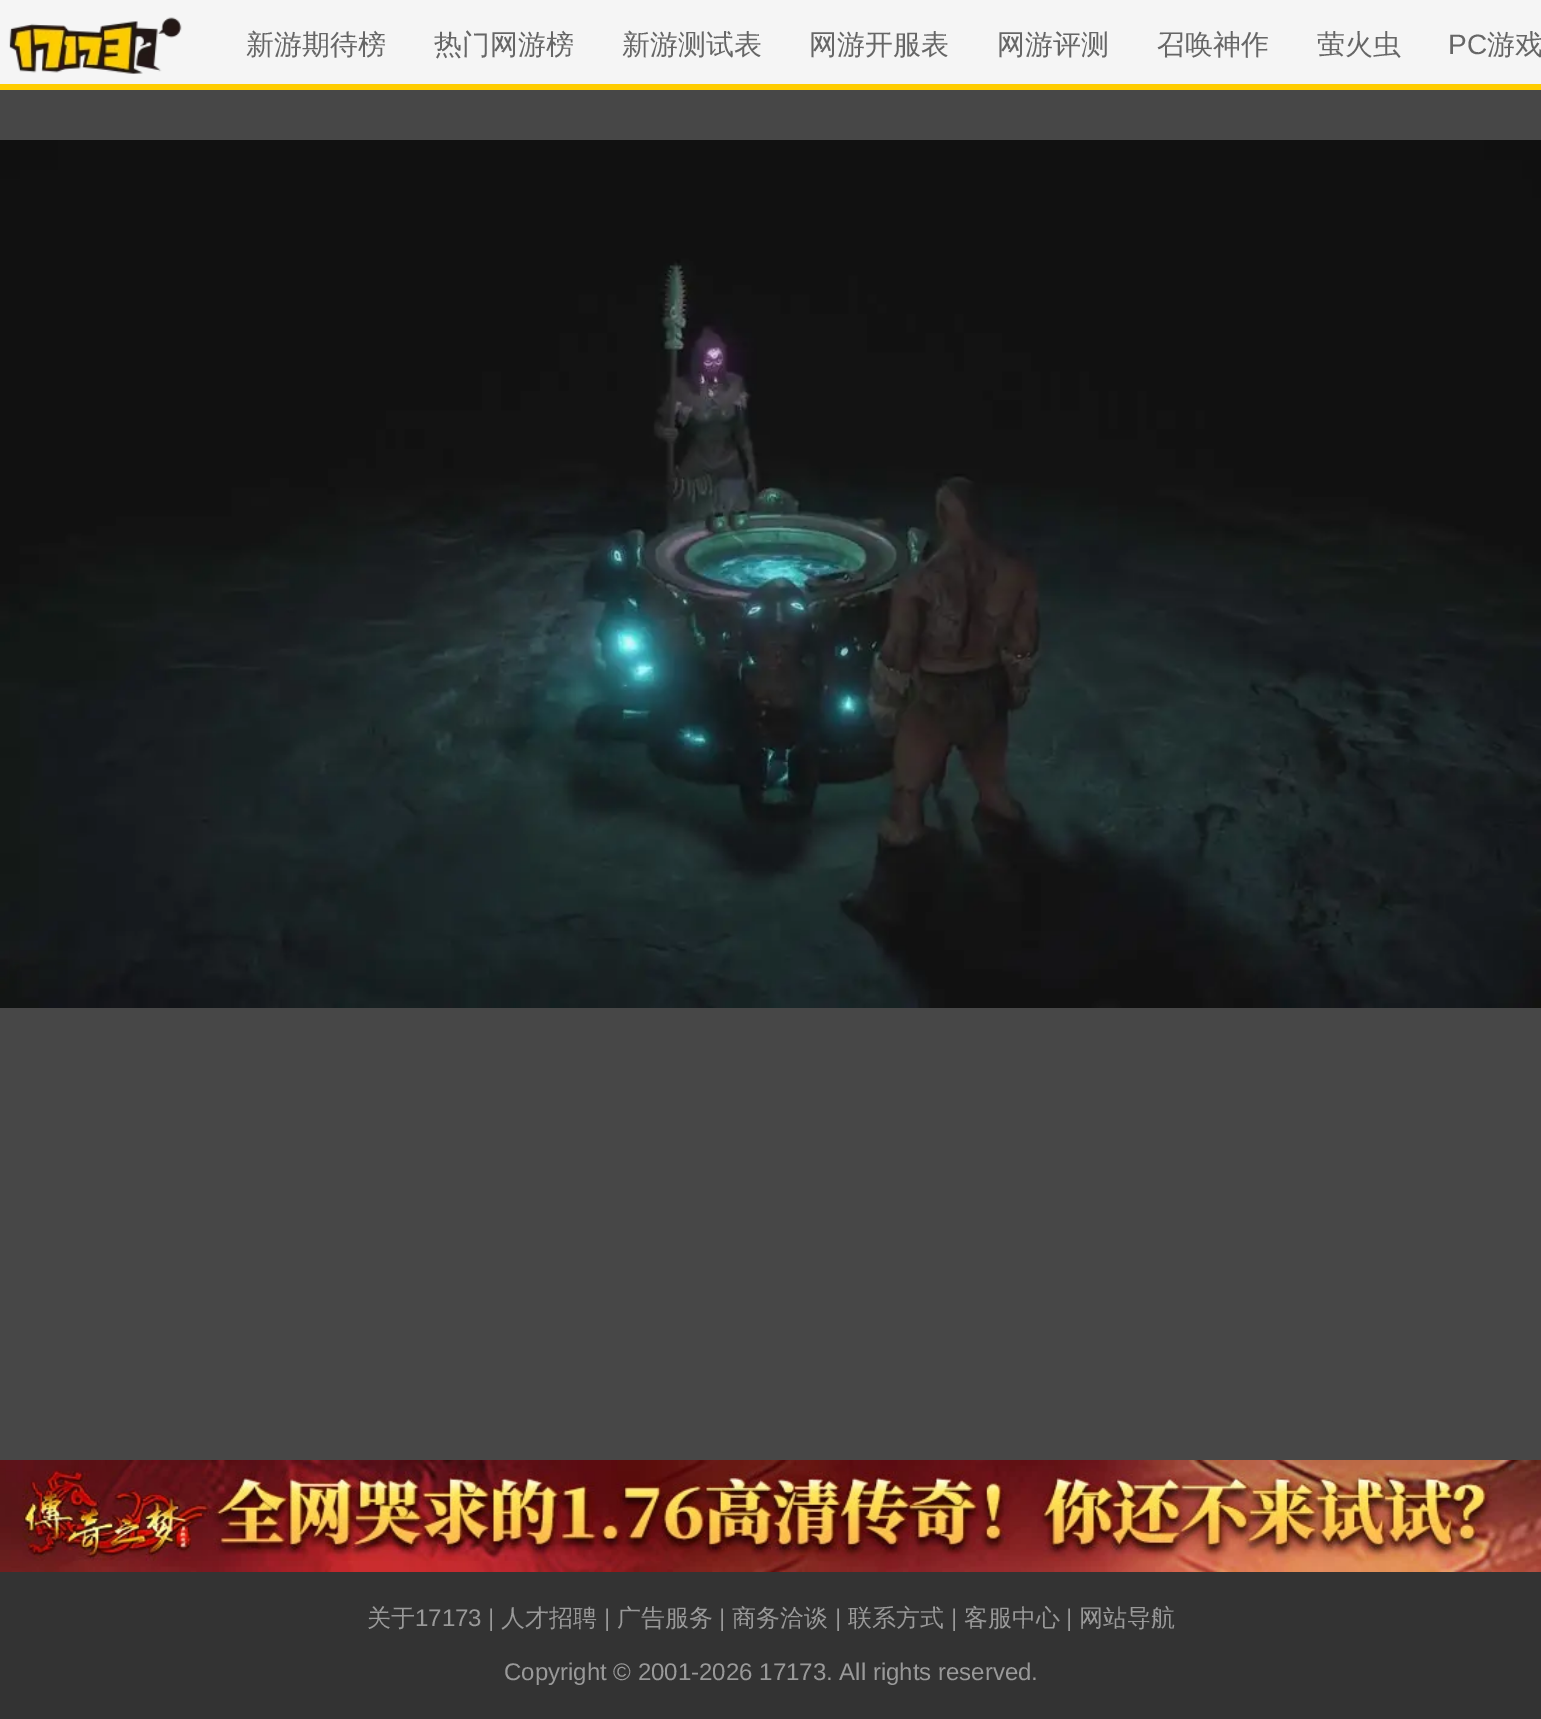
%!PS-Adobe-3.0
%%BoundingBox: 0 0 1541 1719
%%LanguageLevel: 3
%%Pages: 1
%%EndComments
%%BeginProlog
/fn { [ exch dup neg 0 0 3 -1 roll 0 0 ] selectfont } def
/tx { moveto show } def
/bx { rectfill } def
/im { 5 dict begin { /h /w /y /x /name } { exch def } forall
  gsave x y translate w h scale
  w h 8 [w 0 0 h 0 0] name (r) file false 3 colorimage grestore end } def
%%EndProlog
%%BeginSetup
<< /PageSize [1541 1719] >> setpagedevice
%%EndSetup
%%Page: 1 1
0 1719 translate 1 -1 scale
4 setmiterlimit
0.278 setgray
0 0 1541 1719 bx
0.961 setgray
0 0 1541 84 bx
1 0.804 0 setrgbcolor
0 84 1541 6 bx
(image0.raw) 9 17 173 57 im
/WenQuanYiZenHei-Medium 28 fn
0.4 setgray
(新游期待榜) 246 54 tx
(热门网游榜) 434 54 tx
(新游测试表) 622 54 tx
(网游开服表) 809 54 tx
(网游评测) 997 54 tx
(召唤神作) 1157 54 tx
(萤火虫) 1317 54 tx
/LiberationSans-Regular 28 fn
(PC) 1448 54 tx
/WenQuanYiZenHei-Medium 28 fn
(游戏) 1487 54 tx
(image1.raw) 0 140 1541 868 im
(image2.raw) 0 1460 1541 112 im
0.2 setgray
0 1572 1541 147 bx
/WenQuanYiZenHei-Medium 24 fn
0.6 setgray
(关于) 367 1626 tx
/LiberationSans-Regular 24 fn
(17173 |) 415 1626 tx
/WenQuanYiZenHei-Medium 24 fn
(人才招聘) 501 1626 tx
/LiberationSans-Regular 24 fn
(|) 604 1626 tx
/WenQuanYiZenHei-Medium 24 fn
(广告服务) 617 1626 tx
/LiberationSans-Regular 24 fn
(|) 719 1626 tx
/WenQuanYiZenHei-Medium 24 fn
(商务洽谈) 732 1626 tx
/LiberationSans-Regular 24 fn
(|) 835 1626 tx
/WenQuanYiZenHei-Medium 24 fn
(联系方式) 848 1626 tx
/LiberationSans-Regular 24 fn
(|) 951 1626 tx
/WenQuanYiZenHei-Medium 24 fn
(客服中心) 964 1626 tx
/LiberationSans-Regular 24 fn
(|) 1066 1626 tx
/WenQuanYiZenHei-Medium 24 fn
(网站导航) 1079 1626 tx
/LiberationSans-Regular 24 fn
(Copyright © 2001-2026 17173. All rights reserved.) 504 1680 tx
showpage
%%EOF
